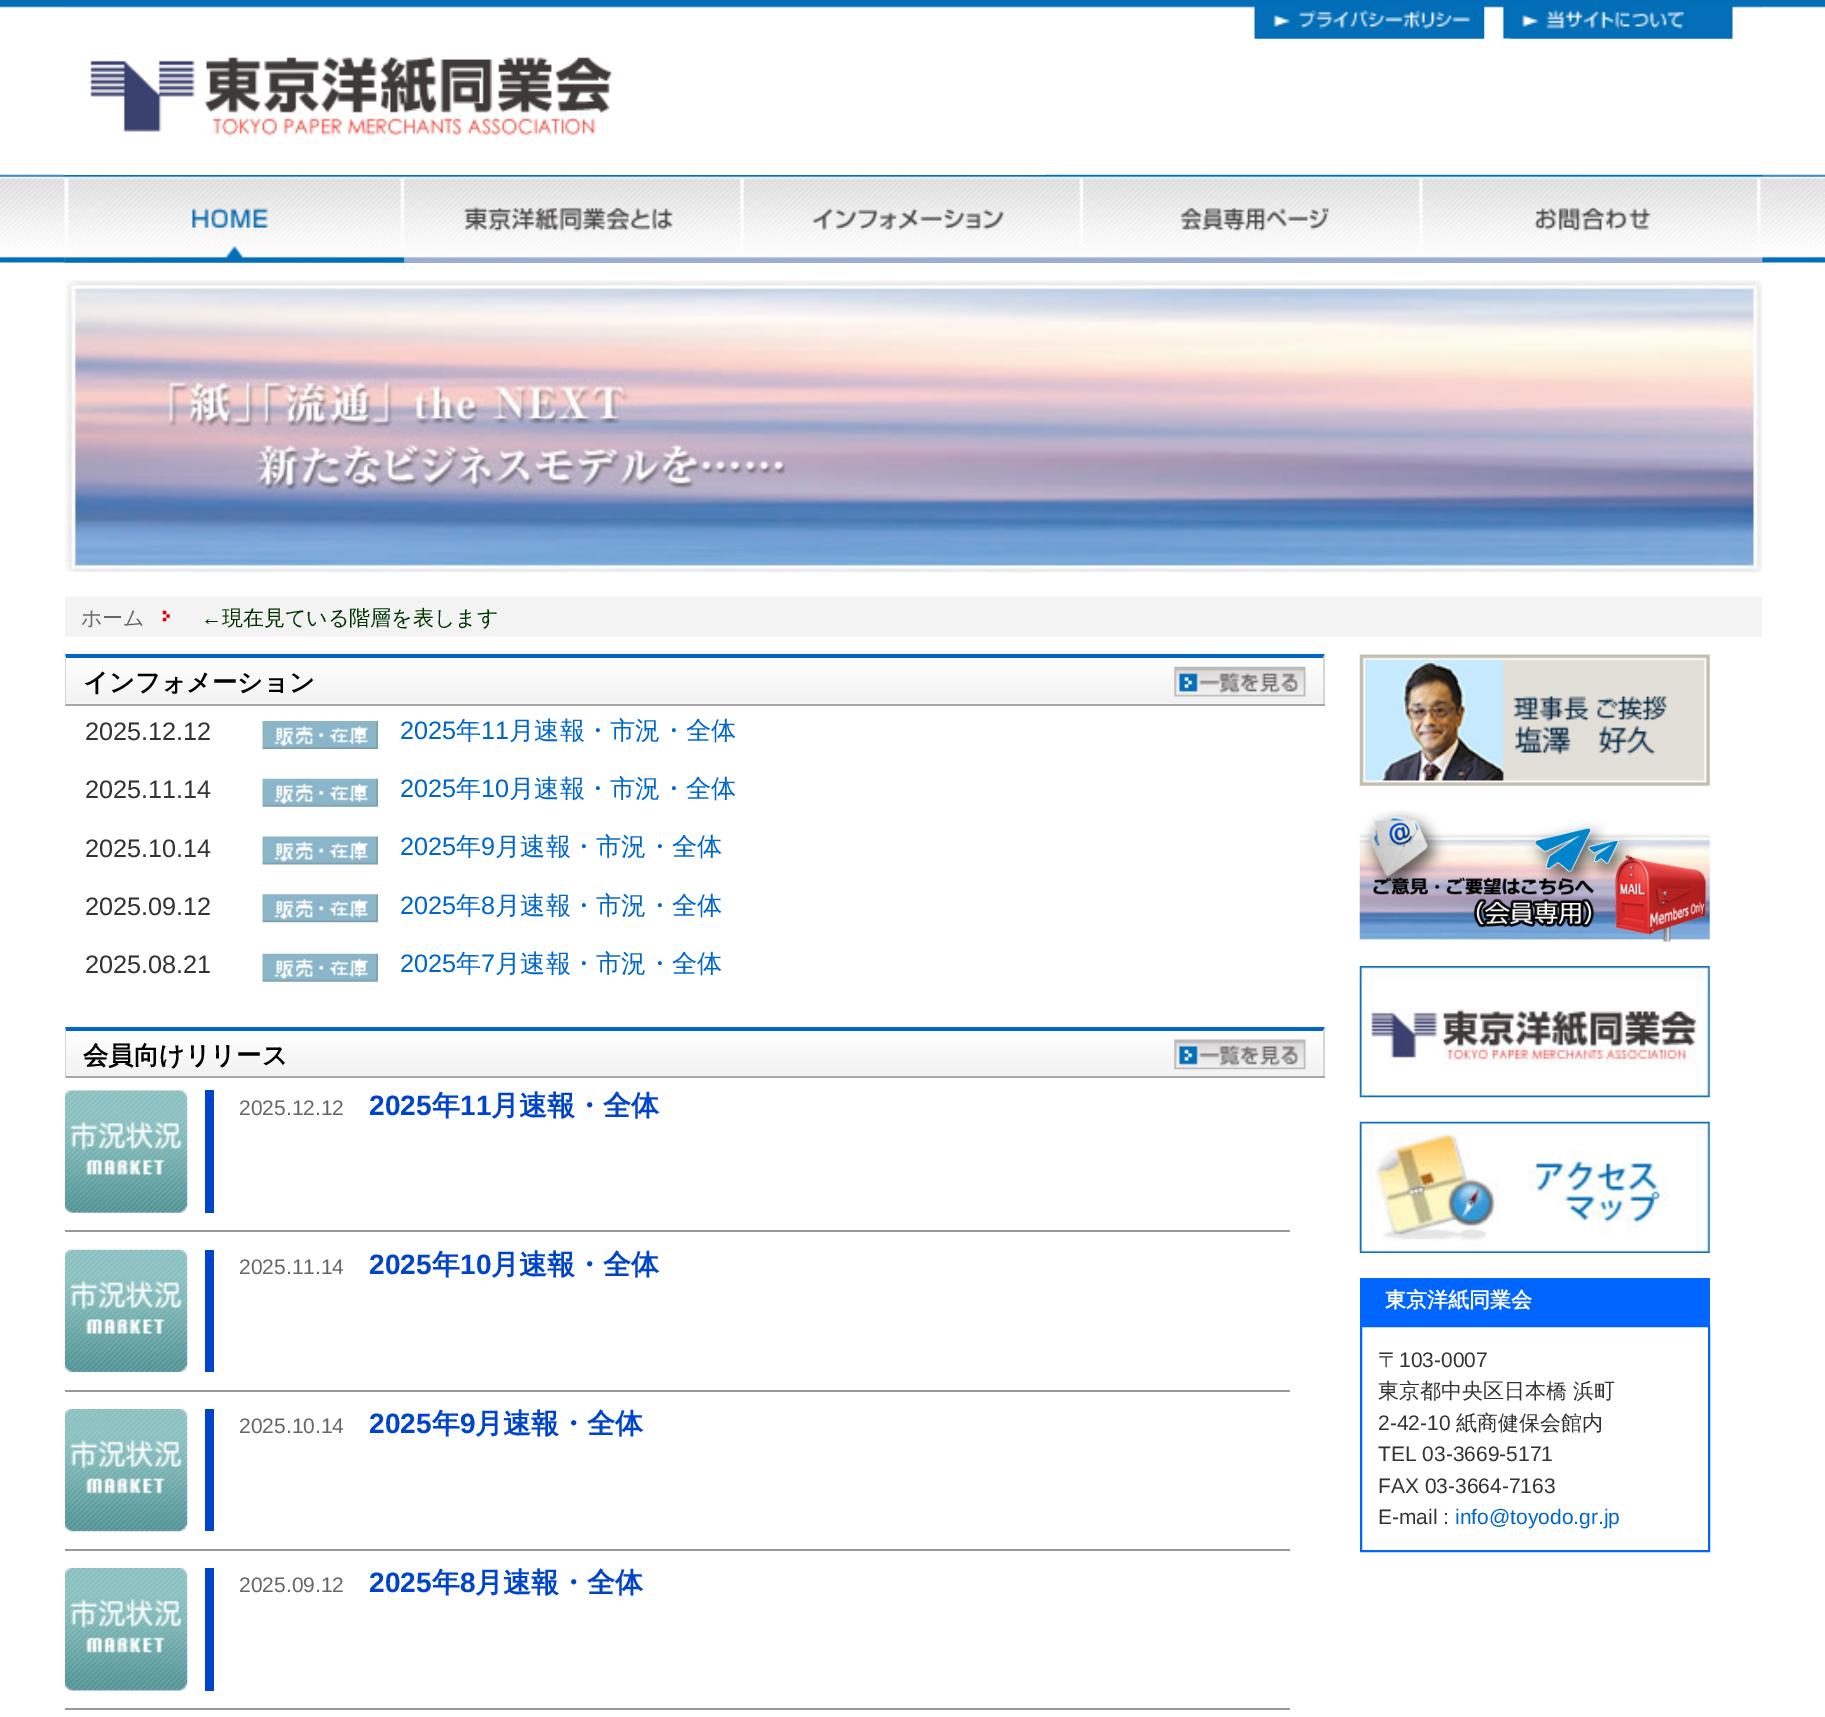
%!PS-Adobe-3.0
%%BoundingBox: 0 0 1825 1717
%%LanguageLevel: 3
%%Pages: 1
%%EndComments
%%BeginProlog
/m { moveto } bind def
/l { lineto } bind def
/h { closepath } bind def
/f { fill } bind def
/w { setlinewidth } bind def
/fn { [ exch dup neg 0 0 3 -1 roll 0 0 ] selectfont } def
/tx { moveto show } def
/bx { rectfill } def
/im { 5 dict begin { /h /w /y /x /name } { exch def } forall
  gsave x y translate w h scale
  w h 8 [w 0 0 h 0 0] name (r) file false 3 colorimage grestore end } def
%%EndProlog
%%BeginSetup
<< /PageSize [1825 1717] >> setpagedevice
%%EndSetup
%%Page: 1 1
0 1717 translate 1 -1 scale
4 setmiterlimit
1 setgray
0 0 1825 1717 bx
(image0.raw) 0 0 1825 263 im
(image1.raw) 65 6 1697 33 im
(image2.raw) 1254 6 230 33 im
(image3.raw) 1510 38 223 1 im
(image4.raw) 64 55 981 120 im
0.882 0.933 0.965 setrgbcolor
64 174 1 1 bx
(image5.raw) 64 175 1699 88 im
(image6.raw) 64 175 341 88 im
(image7.raw) 404 178 340 85 im
(image8.raw) 743 179 341 84 im
(image9.raw) 1083 178 340 85 im
(image10.raw) 1422 175 341 88 im
(image11.raw) 65 280 1697 293 im
0.953 setgray
65 597 1697 40 bx
/WenQuanYiZenHei-Medium 21 fn
0.4 setgray
(ホーム) 81 625 tx
(image12.raw) 162 610 8 12 im
/LiberationSans-Regular 21 fn
0 0.2 0 setrgbcolor
(←) 201 625 tx
/WenQuanYiZenHei-Medium 21 fn
(現在見ている階層を表します) 222 625 tx
(image13.raw) 65 654 1260 50 im
0 0.4 0.8 setrgbcolor
65 654 m 1325 654 l 1323 658 l 66 658 l h f
0.839 setgray
1325 654 m 1325 705 l 1323 704 l 1323 658 l h f
0.655 setgray
65 704 1260 2 bx
0.839 setgray
65 705 m 65 654 l 66 658 l 66 704 l h f
/WenQuanYiZenHei-Bold 25.25 fn
0 setgray
(インフォメーション) 83 691 tx
(image14.raw) 1174 666 132 31 im
/LiberationSans-Regular 25.25 fn
0.2 setgray
(2025.12.12) 85 740 tx
(image15.raw) 262 721 116 28 im
0 0.4 0.8 setrgbcolor
(2025) 400 739 tx
/WenQuanYiZenHei-Medium 25.25 fn
(年) 456 739 tx
/LiberationSans-Regular 25.25 fn
(11) 481 739 tx
/WenQuanYiZenHei-Medium 25.25 fn
(月速報・市況・全体) 509 739 tx
/LiberationSans-Regular 25.25 fn
0.2 setgray
(2025.11.14) 85 798 tx
(image16.raw) 262 778 116 29 im
0 0.4 0.8 setrgbcolor
(2025) 400 797 tx
/WenQuanYiZenHei-Medium 25.25 fn
(年) 456 797 tx
/LiberationSans-Regular 25.25 fn
(10) 481 797 tx
/WenQuanYiZenHei-Medium 25.25 fn
(月速報・市況・全体) 509 797 tx
/LiberationSans-Regular 25.25 fn
0.2 setgray
(2025.10.14) 85 857 tx
(image17.raw) 262 836 116 29 im
0 0.4 0.8 setrgbcolor
(2025) 400 855 tx
/WenQuanYiZenHei-Medium 25.25 fn
(年) 456 855 tx
/LiberationSans-Regular 25.25 fn
(9) 481 855 tx
/WenQuanYiZenHei-Medium 25.25 fn
(月速報・市況・全体) 495 855 tx
/LiberationSans-Regular 25.25 fn
0.2 setgray
(2025.09.12) 85 915 tx
(image18.raw) 262 894 116 29 im
0 0.4 0.8 setrgbcolor
(2025) 400 914 tx
/WenQuanYiZenHei-Medium 25.25 fn
(年) 456 914 tx
/LiberationSans-Regular 25.25 fn
(8) 481 914 tx
/WenQuanYiZenHei-Medium 25.25 fn
(月速報・市況・全体) 495 914 tx
/LiberationSans-Regular 25.25 fn
0.2 setgray
(2025.08.21) 85 973 tx
(image16.raw) 262 953 116 29 im
0 0.4 0.8 setrgbcolor
(2025) 400 972 tx
/WenQuanYiZenHei-Medium 25.25 fn
(年) 456 972 tx
/LiberationSans-Regular 25.25 fn
(7) 481 972 tx
/WenQuanYiZenHei-Medium 25.25 fn
(月速報・市況・全体) 495 972 tx
(image19.raw) 65 1027 1260 49 im
65 1027 m 1325 1027 l 1323 1031 l 66 1031 l h f
0.839 setgray
1325 1027 m 1325 1078 l 1323 1076 l 1323 1031 l h f
0.655 setgray
65 1076 1260 2 bx
0.839 setgray
65 1078 m 65 1027 l 66 1031 l 66 1076 l h f
/WenQuanYiZenHei-Bold 25.25 fn
0 setgray
(会員向けリリース) 83 1064 tx
(image20.raw) 1174 1039 132 31 im
0.6 setgray
65 1230 1225 2 bx
(image21.raw) 64 1090 124 123 im
0 0.267 0.8 setrgbcolor
205 1090 9 123 bx
/LiberationSans-Regular 21 fn
0.4 setgray
(2025.12.12) 239 1115 tx
/LiberationSans-Bold 28 fn
0 0.267 0.8 setrgbcolor
(2025) 369 1115 tx
/WenQuanYiZenHei-Bold 28 fn
(年) 432 1115 tx
/LiberationSans-Bold 28 fn
(11) 460 1115 tx
/WenQuanYiZenHei-Bold 28 fn
(月速報・全体) 491 1115 tx
0.6 setgray
65 1390 1225 2 bx
(image22.raw) 64 1249 124 123 im
0 0.267 0.8 setrgbcolor
205 1250 9 122 bx
/LiberationSans-Regular 21 fn
0.4 setgray
(2025.11.14) 239 1274 tx
/LiberationSans-Bold 28 fn
0 0.267 0.8 setrgbcolor
(2025) 369 1274 tx
/WenQuanYiZenHei-Bold 28 fn
(年) 432 1274 tx
/LiberationSans-Bold 28 fn
(10) 460 1274 tx
/WenQuanYiZenHei-Bold 28 fn
(月速報・全体) 491 1274 tx
0.6 setgray
65 1549 1225 2 bx
(image23.raw) 64 1408 124 124 im
0 0.267 0.8 setrgbcolor
205 1409 9 122 bx
/LiberationSans-Regular 21 fn
0.4 setgray
(2025.10.14) 239 1433 tx
/LiberationSans-Bold 28 fn
0 0.267 0.8 setrgbcolor
(2025) 369 1433 tx
/WenQuanYiZenHei-Bold 28 fn
(年) 432 1433 tx
/LiberationSans-Bold 28 fn
(9) 460 1433 tx
/WenQuanYiZenHei-Bold 28 fn
(月速報・全体) 475 1433 tx
0.6 setgray
65 1708 1225 2 bx
(image24.raw) 64 1568 124 123 im
0 0.267 0.8 setrgbcolor
205 1568 9 123 bx
/LiberationSans-Regular 21 fn
0.4 setgray
(2025.09.12) 239 1592 tx
/LiberationSans-Bold 28 fn
0 0.267 0.8 setrgbcolor
(2025) 369 1592 tx
/WenQuanYiZenHei-Bold 28 fn
(年) 432 1592 tx
/LiberationSans-Bold 28 fn
(8) 460 1592 tx
/WenQuanYiZenHei-Bold 28 fn
(月速報・全体) 475 1592 tx
(image25.raw) 1359 654 351 132 im
(image26.raw) 1359 810 351 132 im
(image27.raw) 1359 966 351 132 im
(image28.raw) 1359 1121 351 132 im
0 0.4 1 setrgbcolor
1360 1278 350 47 bx
/WenQuanYiZenHei-Bold 21 fn
1 setgray
(東京洋紙同業会) 1385 1307 tx
0 0.4 1 setrgbcolor
2 w
1361 1326 348 225 rectstroke
/WenQuanYiZenHei-Medium 21 fn
0.2 setgray
(〒) 1378 1367 tx
/LiberationSans-Regular 21 fn
(103-0007) 1399 1367 tx
/WenQuanYiZenHei-Medium 21 fn
(東京都中央区日本橋) 1378 1398 tx
(浜町) 1573 1398 tx
/LiberationSans-Regular 21 fn
(2-42-10) 1378 1430 tx
/WenQuanYiZenHei-Medium 21 fn
(紙商健保会館内) 1456 1430 tx
/LiberationSans-Regular 21 fn
(TEL 03-3669-5171) 1378 1461 tx
(FAX 03-3664-7163) 1378 1493 tx
(E-mail :) 1378 1524 tx
0 0.4 0.8 setrgbcolor
(info@toyodo.gr.jp) 1455 1524 tx
showpage
%%EOF
